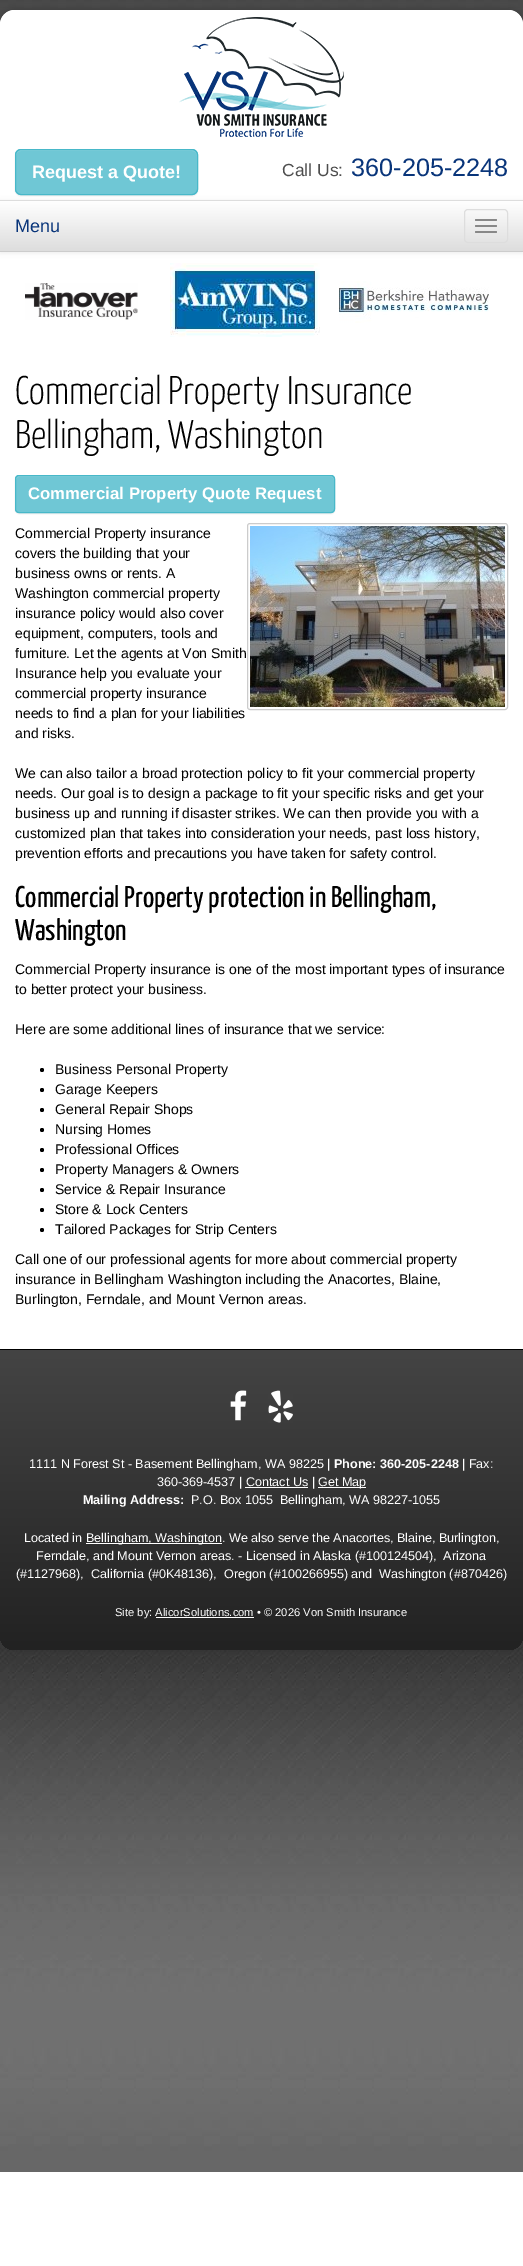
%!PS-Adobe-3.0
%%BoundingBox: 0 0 523 2266
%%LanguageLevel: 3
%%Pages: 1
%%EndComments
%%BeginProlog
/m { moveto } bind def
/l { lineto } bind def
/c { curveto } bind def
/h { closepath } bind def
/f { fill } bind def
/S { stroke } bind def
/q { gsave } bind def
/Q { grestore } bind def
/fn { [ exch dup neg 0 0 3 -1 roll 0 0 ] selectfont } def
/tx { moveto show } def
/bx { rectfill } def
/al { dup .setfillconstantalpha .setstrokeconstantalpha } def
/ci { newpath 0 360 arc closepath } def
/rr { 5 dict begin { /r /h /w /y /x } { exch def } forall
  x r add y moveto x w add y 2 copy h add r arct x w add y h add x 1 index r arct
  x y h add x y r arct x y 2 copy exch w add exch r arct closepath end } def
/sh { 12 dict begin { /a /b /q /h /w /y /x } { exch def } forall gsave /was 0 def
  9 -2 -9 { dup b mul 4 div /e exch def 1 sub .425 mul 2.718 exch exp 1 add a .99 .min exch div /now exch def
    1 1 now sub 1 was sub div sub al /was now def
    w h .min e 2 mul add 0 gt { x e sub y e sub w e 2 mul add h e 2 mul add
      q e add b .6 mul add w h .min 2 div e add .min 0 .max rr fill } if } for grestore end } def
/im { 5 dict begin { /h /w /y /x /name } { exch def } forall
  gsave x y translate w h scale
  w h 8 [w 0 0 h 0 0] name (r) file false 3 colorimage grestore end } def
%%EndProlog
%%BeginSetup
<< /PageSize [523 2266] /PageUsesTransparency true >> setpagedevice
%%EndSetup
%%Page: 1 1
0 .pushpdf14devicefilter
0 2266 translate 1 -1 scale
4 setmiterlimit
1 setgray
0 0 523 2266 bx
(image0.raw) 0 0 523 2172 im
0.2 setgray
0 11 523 1640 15 3.5 1 sh
1 setgray
0 10 523 1640 15 rr f
15 10 m 508 10 l 516.5 10 523 16.5 523 25 c 523 252 l 0 252 l 0 25 l 0 16.5 6.5 10 15 10 c h f
(image1.raw) 179 17 165 120 im
0 setgray
15 150 183 46 6 0.5 0.07 sh
0.435 0.78 0.835 setrgbcolor
15 149 183 46 6 rr f
0.522 0.812 0.859 setrgbcolor
21 151 m 192 151 l 195 151 197 153 197 156 c 197 153 196 151 193 150 c 21 150 l 18 150 16 153 16 156 c 16 153 18 151 21 151 c h f
0.282 0.722 0.788 setrgbcolor
15.5 149.5 182 45 5.5 rr S
/LiberationSans-Bold 18 fn
1 setgray
(Request a Quote!) 32 178 tx
/LiberationSans-Regular 17.5 fn
0.302 setgray
(Call Us:) 282 176 tx
/LiberationSans-Regular 25.25 fn
0.035 0.208 0.478 setrgbcolor
(360-205-2248) 351 176 tx
0 setgray
0 201 523 52 0 2.5 0.07 sh
q 0 200 m 523 200 l 523 201 l 0 201 l h clip newpath
<< /ShadingType 2 /ColorSpace /DeviceRGB /Coords [262 151 262 201] /Extend [true true] /Function << /FunctionType 2 /Domain [0 1] /C0 [1 1 1] /C1 [0.867 0.867 0.867] /N 1 >> >> shfill Q
q 0 201 m 523 201 l 523 251 l 0 251 l h clip newpath
<< /ShadingType 2 /ColorSpace /DeviceRGB /Coords [262 201 262 251] /Extend [true true] /Function << /FunctionType 2 /Domain [0 1] /C0 [1 1 1] /C1 [0.867 0.867 0.867] /N 1 >> >> shfill Q
0.8 setgray
0 251 523 1 bx
/LiberationSans-Regular 18 fn
0.035 0.208 0.478 setrgbcolor
(Menu) 15 232 tx
0.867 setgray
464.5 209.5 43 33 3.5 rr S
0.533 setgray
475 219 22 2 1 rr f
475 225 22 2 1 rr f
475 231 22 2 1 rr f
(image2.raw) 25 283 113 37 im
(image3.raw) 170 263 150 74 im
(image4.raw) 339 281 150 42 im
/YanoneKaffeesatz-Light 40 fn
0 setgray
(Commercial Property Insurance) 15 404 tx
(Bellingham, Washington) 15 448 tx
15 476 320 38 4 0.5 0.07 sh
0.435 0.78 0.835 setrgbcolor
15 475 320 38 4 rr f
0.522 0.812 0.859 setrgbcolor
19 477 m 331 477 l 333 477 334 478 334 480 c 333 477 l 332 476 l 19 476 l 17 476 16 478 16 480 c 16 478 17 477 19 477 c h f
0.282 0.722 0.788 setrgbcolor
15.5 475.5 319 37 3.5 rr S
/LiberationSans-Bold 16.75 fn
1 setgray
(Commercial Property Quote Request) 28 499 tx
/LiberationSans-Regular 14 fn
0 setgray
(Commercial Property insurance) 15 538 tx
(covers the building that your) 15 558 tx
(business owns or rents. A) 15 578 tx
(Washington commercial property) 15 598 tx
(insurance policy would also cover) 15 618 tx
(equipment, computers, tools and) 15 638 tx
(furniture. Let the agents at Von Smith) 15 658 tx
(Insurance help you evaluate your) 15 678 tx
(commercial property insurance) 15 698 tx
(needs to find a plan for your liabilities) 15 718 tx
(and risks.) 15 738 tx
0.8 setgray
247.5 523.5 260 186 2.5 rr S
(image5.raw) 250 526 255 181 im
0 setgray
(We can also tailor a broad protection policy to fit your commercial property) 15 778 tx
(needs. Our goal is to design a package to fit your specific risks and get your) 15 798 tx
(business up and running if disaster strikes. We can then provide you with a) 15 818 tx
(customized plan that takes into consideration your needs, past loss history,) 15 838 tx
(prevention efforts and precautions you have taken for safety control.) 15 858 tx
/YanoneKaffeesatz-Regular 30 fn
(Commercial Property protection in Bellingham,) 15 907 tx
(Washington) 15 940 tx
/LiberationSans-Regular 14 fn
(Commercial Property insurance is one of the most important types of insurance) 15 974 tx
(to better protect your business.) 15 994 tx
(Here are some additional lines of insurance that we service:) 15 1034 tx
42 1070 2 ci f
(Business Personal Property) 55 1074 tx
42 1090 2 ci f
(Garage Keepers) 55 1094 tx
42 1110 2 ci f
(General Repair Shops) 55 1114 tx
42 1130 2 ci f
(Nursing Homes) 55 1134 tx
42 1150 2 ci f
(Professional Offices) 55 1154 tx
42 1170 2 ci f
(Property Managers & Owners) 55 1174 tx
42 1190 2 ci f
(Service & Repair Insurance) 55 1194 tx
42 1210 2 ci f
(Store & Lock Centers) 55 1214 tx
42 1230 2 ci f
(Tailored Packages for Strip Centers) 55 1234 tx
(Call one of our professional agents for more about commercial property) 15 1264 tx
(insurance in Bellingham Washington including the Anacortes, Blaine,) 15 1284 tx
(Burlington, Ferndale, and Mount Vernon areas.) 15 1304 tx
q 0 1350 m 523 1350 l 523 1635 l 523 1643.5 516.5 1650 508 1650 c 15 1650 l 6.5 1650 0 1643.5 0 1635 c h clip newpath
<< /ShadingType 2 /ColorSpace /DeviceRGB /Coords [262 1350 262 1650] /Extend [true true] /Function << /FunctionType 2 /Domain [0 1] /C0 [0.267 0.267 0.267] /C1 [0.133 0.133 0.133] /N 1 >> >> shfill Q
0 1349 523 1 bx
(image6.raw) 230 1390 17 31 im
(image7.raw) 268 1390 25 33 im
/LiberationSans-Regular 12.6 fn
1 setgray
(1111 N Forest St - Basement Bellingham, WA 98225 |) 29 1468 tx
/LiberationSans-Bold 12.6 fn
(Phone: 360-205-2248) 334 1468 tx
/LiberationSans-Regular 12.6 fn
(| Fax:) 462 1468 tx
(360-369-4537 | Contact Us |) 157 1486 tx
318 1487 48 1 bx
(Get Map) 318 1486 tx
245 1487 63 1 bx
/LiberationSans-Bold 12.6 fn
(Mailing Address:) 83 1504 tx
/LiberationSans-Regular 12.6 fn
(P.O. Box 1055  Bellingham, WA 98227-1055) 191 1504 tx
(Located in) 24 1542 tx
86 1543 136 1 bx
(Bellingham, Washington. We also serve the Anacortes, Blaine, Burlington,) 86 1542 tx
(Ferndale, and Mount Vernon areas. - Licensed in Alaska \(#100124504\),  Arizona) 36 1560 tx
(\(#1127968\),  California \(#0K48136\),  Oregon \(#100266955\) and  Washington \(#870426\)) 16 1578 tx
/LiberationSans-Regular 11.2 fn
(Site by: AlicorSolutions.com • © 2026 Von Smith Insurance) 115 1616 tx
156 1617 98 1 bx
.poppdf14devicefilter showpage
%%EOF
